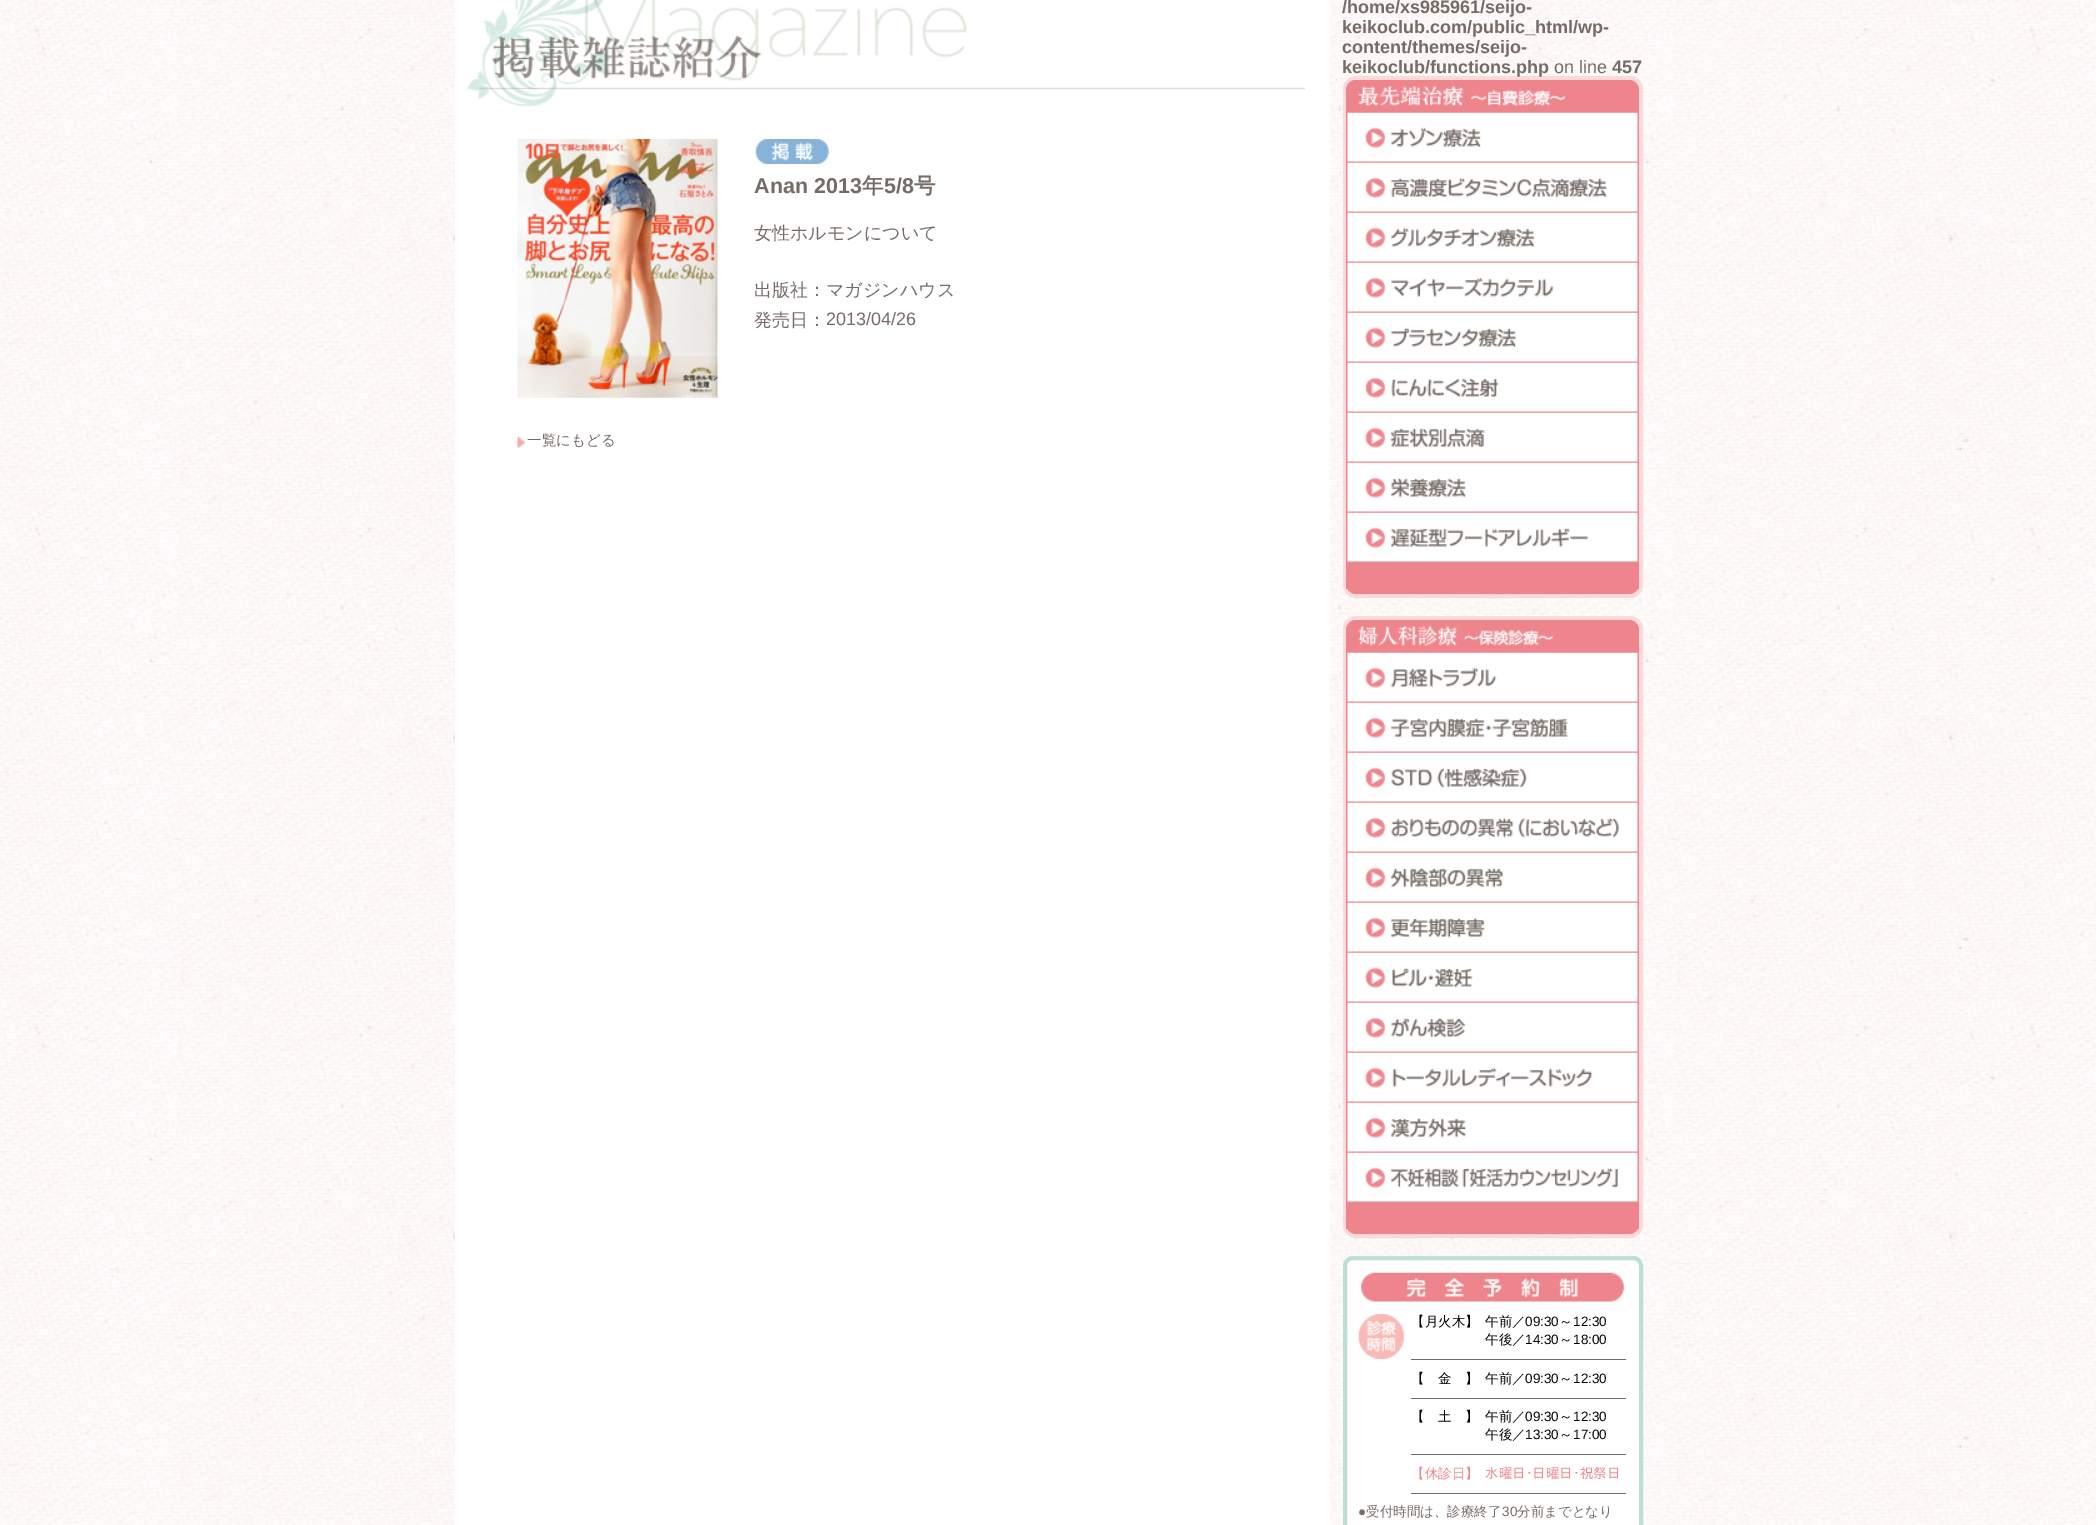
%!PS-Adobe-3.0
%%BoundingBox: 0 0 2096 1525
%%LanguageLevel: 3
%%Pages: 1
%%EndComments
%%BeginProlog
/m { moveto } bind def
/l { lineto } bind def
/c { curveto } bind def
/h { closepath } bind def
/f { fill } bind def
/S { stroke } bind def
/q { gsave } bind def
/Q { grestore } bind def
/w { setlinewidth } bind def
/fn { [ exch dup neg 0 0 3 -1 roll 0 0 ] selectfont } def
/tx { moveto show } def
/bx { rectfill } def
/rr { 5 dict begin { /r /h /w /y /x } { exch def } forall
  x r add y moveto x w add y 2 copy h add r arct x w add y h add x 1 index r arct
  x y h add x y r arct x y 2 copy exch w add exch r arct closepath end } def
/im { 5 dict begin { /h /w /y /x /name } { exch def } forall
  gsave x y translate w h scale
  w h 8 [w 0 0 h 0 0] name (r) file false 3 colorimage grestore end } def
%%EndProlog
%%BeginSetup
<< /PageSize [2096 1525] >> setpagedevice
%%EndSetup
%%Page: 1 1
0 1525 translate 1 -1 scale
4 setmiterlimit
1 setgray
0 0 2096 1525 bx
(image0.raw) 0 0 2096 1525 im
455 0 875 1525 bx
(image1.raw) 467 0 838 107 im
(image2.raw) 517 139 201 259 im
(image3.raw) 755 139 74 25 im
/LiberationSans-Bold 21.5 fn
0.463 0.42 0.4 setrgbcolor
(Anan 2013) 754 193 tx
/WenQuanYiZenHei-Bold 21.5 fn
(年) 862 193 tx
/LiberationSans-Bold 21.5 fn
(5/8) 884 193 tx
/WenQuanYiZenHei-Bold 21.5 fn
(号) 914 193 tx
/WenQuanYiZenHei-Medium 18 fn
(女性ホルモンについて) 754 239 tx
(出版社：マガジンハウス) 754 296 tx
(発売日：) 754 326 tx
/LiberationSans-Regular 18 fn
(2013/04/26) 826 325 tx
(image4.raw) 517 436 8 12 im
/WenQuanYiZenHei-Medium 14.5 fn
(一覧にもどる) 527 445 tx
/LiberationSans-Bold 18 fn
(/home/xs985961/seijo-) 1342 13 tx
(keikoclub.com/public_html/wp-) 1342 33 tx
(content/themes/seijo-) 1342 53 tx
0.98 0.859 0.851 setrgbcolor
1345 78 296 518 11 rr q f Q
4 w
S
0.463 0.42 0.4 setrgbcolor
(keikoclub/functions.php) 1342 73 tx
/LiberationSans-Regular 18 fn
(on line) 1554 73 tx
/LiberationSans-Bold 18 fn
(457) 1612 73 tx
0.933 0.522 0.549 setrgbcolor
1356 80 m 1629 80 l 1634.5 80 1639 84.5 1639 90 c 1639 111 l 1346 111 l 1346 90 l 1346 84.5 1350.5 80 1356 80 c h f
(image5.raw) 1358 86 207 20 im
1346 111 m 1639 111 l 1639 584 l 1639 589.5 1634.5 594 1629 594 c 1356 594 l 1350.5 594 1346 589.5 1346 584 c h f
1638 584 1 5 bx
1346 584 1 5 bx
(image6.raw) 1347 112 291 50 im
(image7.raw) 1347 162 291 50 im
(image8.raw) 1347 212 291 50 im
(image9.raw) 1347 262 291 50 im
(image10.raw) 1347 312 291 50 im
(image11.raw) 1347 362 291 50 im
(image12.raw) 1347 412 291 50 im
(image13.raw) 1347 462 291 50 im
(image14.raw) 1347 512 291 50 im
0.98 0.859 0.851 setrgbcolor
1345 618 296 618 11 rr q f Q
S
0.933 0.522 0.549 setrgbcolor
1356 620 m 1629 620 l 1634.5 620 1639 624.5 1639 630 c 1639 651 l 1346 651 l 1346 630 l 1346 624.5 1350.5 620 1356 620 c h f
(image15.raw) 1358 626 195 20 im
1346 651 m 1639 651 l 1639 1224 l 1639 1229.5 1634.5 1234 1629 1234 c 1356 1234 l 1350.5 1234 1346 1229.5 1346 1224 c h f
1638 1224 1 5 bx
1346 1224 1 5 bx
(image16.raw) 1347 652 291 50 im
(image17.raw) 1347 702 291 50 im
(image18.raw) 1347 752 291 50 im
(image19.raw) 1347 802 291 50 im
(image20.raw) 1347 852 291 50 im
(image21.raw) 1347 902 291 50 im
(image22.raw) 1347 952 291 50 im
(image23.raw) 1347 1002 291 50 im
(image24.raw) 1347 1052 291 50 im
(image25.raw) 1347 1102 291 50 im
(image26.raw) 1347 1152 291 50 im
1 setgray
1345 1258 296 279 8 rr q f Q
0.741 0.878 0.835 setrgbcolor
S
(image27.raw) 1361 1272 263 30 im
(image28.raw) 1358 1314 46 45 im
0.463 0.42 0.4 setrgbcolor
1411 1359 215 1 bx
/WenQuanYiZenHei-Medium 13.5 fn
0 setgray
(【月火木】) 1411 1326 tx
(午前／) 1485 1326 tx
/LiberationSans-Regular 13.5 fn
(09:30) 1525 1326 tx
/WenQuanYiZenHei-Medium 13.5 fn
(～) 1559 1326 tx
/LiberationSans-Regular 13.5 fn
(12:30) 1573 1326 tx
/WenQuanYiZenHei-Medium 13.5 fn
(午後／) 1485 1344 tx
/LiberationSans-Regular 13.5 fn
(14:30) 1525 1344 tx
/WenQuanYiZenHei-Medium 13.5 fn
(～) 1559 1344 tx
/LiberationSans-Regular 13.5 fn
(18:00) 1573 1344 tx
0.463 0.42 0.4 setrgbcolor
1411 1398 215 1 bx
/WenQuanYiZenHei-Medium 13.5 fn
0 setgray
(【　金　】) 1411 1383 tx
(午前／) 1485 1383 tx
/LiberationSans-Regular 13.5 fn
(09:30) 1525 1383 tx
/WenQuanYiZenHei-Medium 13.5 fn
(～) 1559 1383 tx
/LiberationSans-Regular 13.5 fn
(12:30) 1573 1383 tx
0.463 0.42 0.4 setrgbcolor
1411 1454 215 1 bx
/WenQuanYiZenHei-Medium 13.5 fn
0 setgray
(【　土　】) 1411 1421 tx
(午前／) 1485 1421 tx
/LiberationSans-Regular 13.5 fn
(09:30) 1525 1421 tx
/WenQuanYiZenHei-Medium 13.5 fn
(～) 1559 1421 tx
/LiberationSans-Regular 13.5 fn
(12:30) 1573 1421 tx
/WenQuanYiZenHei-Medium 13.5 fn
(午後／) 1485 1439 tx
/LiberationSans-Regular 13.5 fn
(13:30) 1525 1439 tx
/WenQuanYiZenHei-Medium 13.5 fn
(～) 1559 1439 tx
/LiberationSans-Regular 13.5 fn
(17:00) 1573 1439 tx
0.463 0.42 0.4 setrgbcolor
1411 1493 215 1 bx
/WenQuanYiZenHei-Medium 13.5 fn
0.933 0.522 0.549 setrgbcolor
(【休診日】) 1411 1478 tx
/IPAPGothic-Regular 13.5 fn
(水曜日･日曜日･祝祭日) 1485 1478 tx
/LiberationSans-Regular 13.5 fn
0.463 0.42 0.4 setrgbcolor
(●) 1358 1516 tx
/WenQuanYiZenHei-Medium 13.5 fn
(受付時間は、診療終了) 1366 1516 tx
/LiberationSans-Regular 13.5 fn
(30) 1502 1516 tx
/WenQuanYiZenHei-Medium 13.5 fn
(分前までとなり) 1517 1516 tx
showpage
%%EOF
